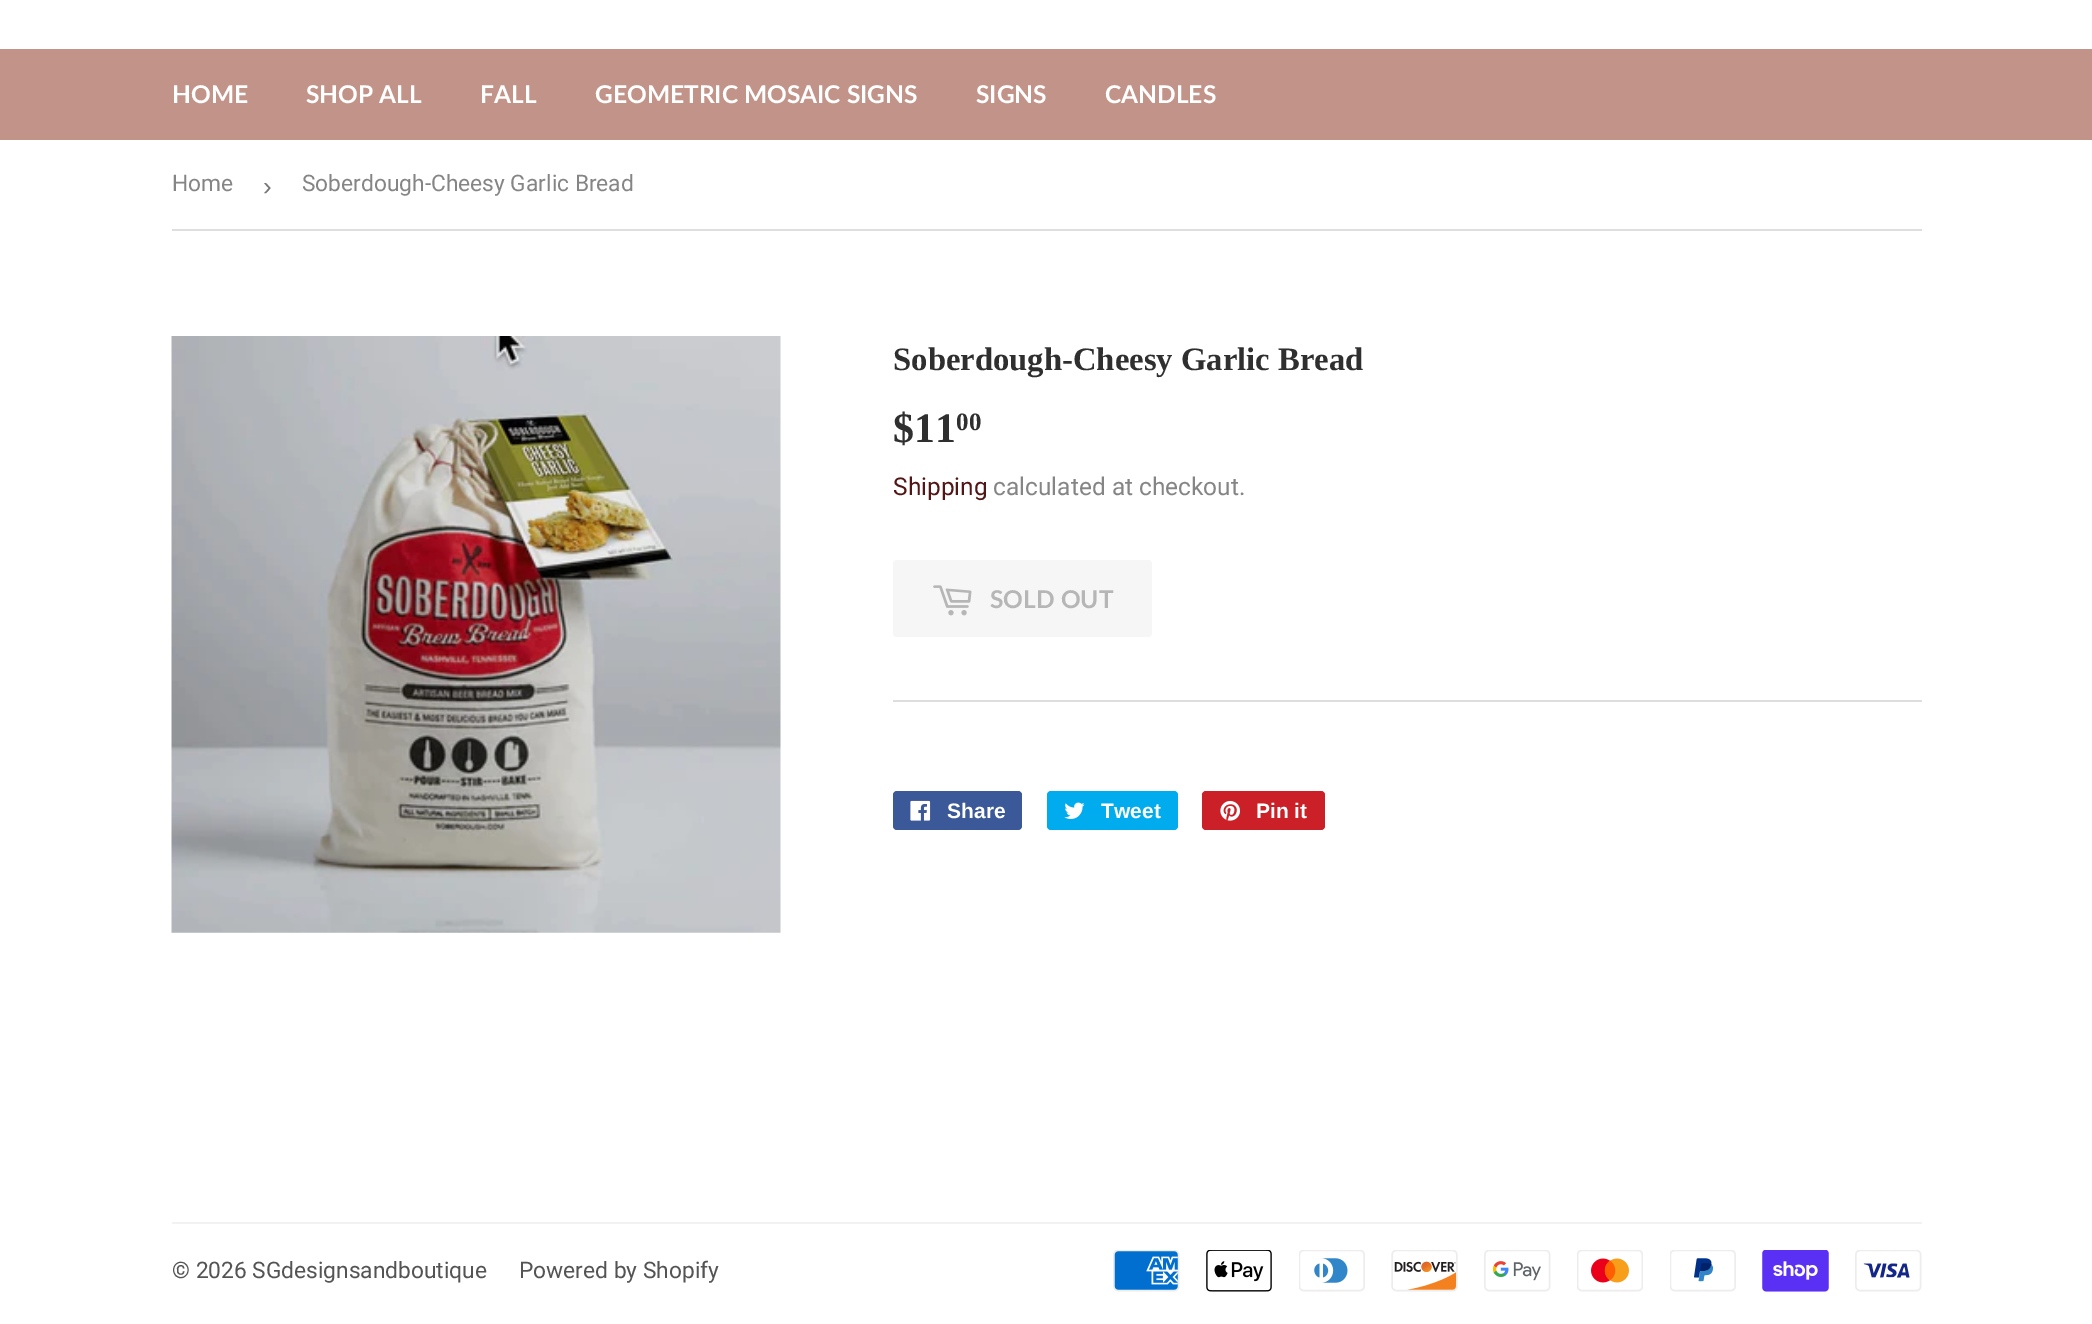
%!PS-Adobe-3.0
%%BoundingBox: 0 0 2092 1324
%%LanguageLevel: 3
%%Pages: 1
%%EndComments
%%BeginProlog
/f { fill } bind def
/fn { [ exch dup neg 0 0 3 -1 roll 0 0 ] selectfont } def
/tx { moveto show } def
/bx { rectfill } def
/rr { 5 dict begin { /r /h /w /y /x } { exch def } forall
  x r add y moveto x w add y 2 copy h add r arct x w add y h add x 1 index r arct
  x y h add x y r arct x y 2 copy exch w add exch r arct closepath end } def
/im { 5 dict begin { /h /w /y /x /name } { exch def } forall
  gsave x y translate w h scale
  w h 8 [w 0 0 h 0 0] name (r) file false 3 colorimage grestore end } def
%%EndProlog
%%BeginSetup
<< /PageSize [2092 1324] >> setpagedevice
%%EndSetup
%%Page: 1 1
0 1324 translate 1 -1 scale
4 setmiterlimit
1 setgray
0 0 2092 1324 bx
0.761 0.576 0.533 setrgbcolor
0 49 2092 91 bx
/Lato-Bold 24.5 fn
1 setgray
(HOME) 172 103 tx
(SHOP ALL) 306 103 tx
(FALL) 480 103 tx
(GEOMETRIC MOSAIC SIGNS) 595 103 tx
(SIGNS) 976 103 tx
(CANDLES) 1105 103 tx
0.871 setgray
172 229 1750 2 bx
/Roboto-Regular 22.75 fn
0.522 setgray
(Home) 172 191 tx
/LiberationSans-Regular 26 fn
0.463 setgray
(›) 263 195 tx
/Roboto-Regular 22.75 fn
0.522 setgray
(Soberdough-Cheesy Garlic Bread) 302 191 tx
(image0.raw) 171 336 610 597 im
/LiberationSerif-Bold 32.7 fn
0.184 setgray
(Soberdough-Cheesy Garlic Bread) 893 370 tx
/LiberationSerif-Bold 42 fn
($11) 893 442 tx
/LiberationSerif-Bold 25 fn
(00) 956 430 tx
/Roboto-Regular 24.5 fn
0.325 0.082 0.082 setrgbcolor
(Shipping) 893 495 tx
0.522 setgray
(calculated at checkout.) 993 495 tx
0.965 setgray
893 560 259 77 4 rr f
(image1.raw) 933 585 39 31 im
/Lato-Bold 24.5 fn
0.714 setgray
(SOLD OUT) 990 608 tx
0.871 setgray
893 700 1029 2 bx
0.231 0.349 0.596 setrgbcolor
893 791 129 39 4 rr f
(image2.raw) 910 800 21 21 im
/LiberationSans-Bold 21 fn
1 setgray
(Share) 947 818 tx
0 0.675 0.929 setrgbcolor
1047 791 131 39 4 rr f
(image3.raw) 1064 802 21 17 im
1 setgray
(Tweet) 1101 818 tx
0.796 0.125 0.153 setrgbcolor
1202 791 123 39 4 rr f
(image4.raw) 1220 801 20 20 im
1 setgray
(Pin it) 1256 818 tx
0.949 setgray
172 1222 1750 2 bx
/Roboto-Regular 22.75 fn
0.329 setgray
(© 2026 SGdesignsandboutique) 172 1278 tx
(Powered by Shopify) 519 1278 tx
(image5.raw) 1113 1250 67 42 im
(image6.raw) 1206 1250 66 42 im
(image7.raw) 1299 1250 66 42 im
(image8.raw) 1391 1250 67 42 im
(image9.raw) 1484 1250 67 42 im
(image10.raw) 1577 1250 66 42 im
(image11.raw) 1670 1250 66 42 im
(image12.raw) 1762 1250 67 42 im
(image13.raw) 1855 1250 67 42 im
showpage
%%EOF
